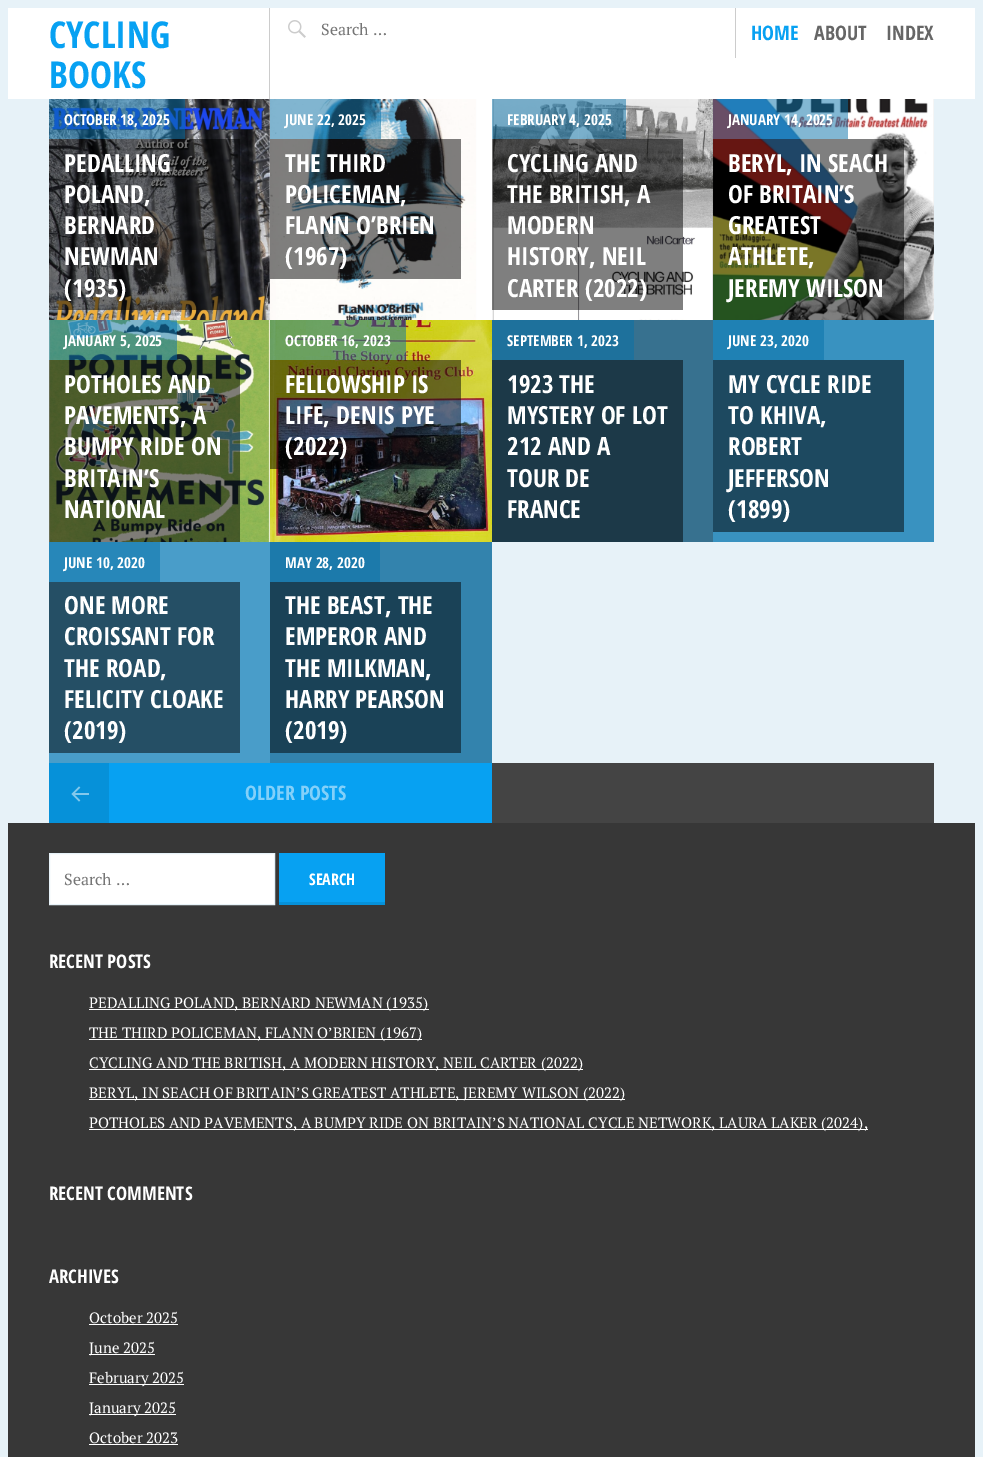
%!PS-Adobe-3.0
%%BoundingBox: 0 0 983 1457
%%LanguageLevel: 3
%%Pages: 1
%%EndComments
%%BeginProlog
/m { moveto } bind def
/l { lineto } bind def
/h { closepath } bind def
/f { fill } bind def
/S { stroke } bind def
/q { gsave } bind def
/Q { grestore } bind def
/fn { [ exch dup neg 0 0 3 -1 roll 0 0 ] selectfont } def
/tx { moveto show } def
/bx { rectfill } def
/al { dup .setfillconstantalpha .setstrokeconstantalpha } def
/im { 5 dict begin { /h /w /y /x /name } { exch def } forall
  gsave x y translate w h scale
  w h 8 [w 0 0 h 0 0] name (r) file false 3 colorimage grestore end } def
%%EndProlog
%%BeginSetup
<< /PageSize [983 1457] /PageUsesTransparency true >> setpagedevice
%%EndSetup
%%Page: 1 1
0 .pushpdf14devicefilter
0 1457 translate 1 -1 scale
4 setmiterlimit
0.906 0.949 0.973 setrgbcolor
0 0 983 1457 bx
1 setgray
8 8 967 91 bx
0.8 setgray
269 8 1 91 bx
/OpenSansCondensed-Bold 37 fn
0.027 0.631 0.949 setrgbcolor
(CYCLING) 49 48 tx
(BOOKS) 49 88 tx
(image0.raw) 288 20 18 18 im
/PTSerif-Regular 16 fn
0.459 setgray
(Search …) 321 35 tx
0.8 setgray
735 8 1 50 bx
/OpenSansCondensed-Bold 20 fn
0.027 0.631 0.949 setrgbcolor
(HOME) 751 40 tx
0.4 setgray
(ABOUT) 814 40 tx
(INDEX) 886 40 tx
(image1.raw) 49 99 221 221 im
0.5 al
0.02 0.439 0.659 setrgbcolor
49 99 136 40 bx
/OpenSansCondensed-Bold 15 fn
1 al
1 setgray
(OCTOBER 18, 2025) 64 125 tx
0.5 al
0 setgray
49 139 191 171 bx
/OpenSansCondensed-Bold 25 fn
1 al
1 setgray
(PEDALLING) 64 172 tx
(POLAND,) 64 203 tx
(BERNARD) 64 234 tx
(NEWMAN) 64 265 tx
(\(1935\)) 64 297 tx
(image2.raw) 270 99 222 221 im
0.5 al
0.02 0.439 0.659 setrgbcolor
270 99 111 40 bx
/OpenSansCondensed-Bold 15 fn
1 al
1 setgray
(JUNE 22, 2025) 285 125 tx
0.5 al
0 setgray
270 139 191 140 bx
/OpenSansCondensed-Bold 25 fn
1 al
1 setgray
(THE THIRD) 285 172 tx
(POLICEMAN,) 285 203 tx
(FLANN O’BRIEN) 285 234 tx
(\(1967\)) 285 265 tx
(image3.raw) 492 99 221 221 im
0.5 al
0.02 0.439 0.659 setrgbcolor
492 99 134 40 bx
/OpenSansCondensed-Bold 15 fn
1 al
1 setgray
(FEBRUARY 4, 2025) 507 125 tx
0.5 al
0 setgray
492 139 191 171 bx
/OpenSansCondensed-Bold 25 fn
1 al
1 setgray
(CYCLING AND) 507 172 tx
(THE BRITISH, A) 507 203 tx
(MODERN) 507 234 tx
(HISTORY, NEIL) 507 265 tx
(CARTER \(2022\)) 507 297 tx
(image4.raw) 713 99 221 221 im
0.5 al
0.02 0.439 0.659 setrgbcolor
713 99 135 40 bx
/OpenSansCondensed-Bold 15 fn
1 al
1 setgray
(JANUARY 14, 2025) 728 125 tx
0.5 al
0 setgray
713 139 191 181 bx
/OpenSansCondensed-Bold 25 fn
1 al
1 setgray
(BERYL, IN SEACH) 728 172 tx
(OF BRITAIN’S) 728 203 tx
(GREATEST) 728 234 tx
(ATHLETE,) 728 265 tx
(JEREMY WILSON) 728 297 tx
(image5.raw) 49 320 221 222 im
0.5 al
0.02 0.439 0.659 setrgbcolor
49 320 128 40 bx
/OpenSansCondensed-Bold 15 fn
1 al
1 setgray
(JANUARY 5, 2025) 64 346 tx
0.5 al
0 setgray
49 360 191 182 bx
/OpenSansCondensed-Bold 25 fn
1 al
1 setgray
(POTHOLES AND) 64 393 tx
(PAVEMENTS, A) 64 424 tx
(BUMPY RIDE ON) 64 455 tx
(BRITAIN’S) 64 487 tx
(NATIONAL) 64 518 tx
(image6.raw) 270 320 222 222 im
0.5 al
0.02 0.439 0.659 setrgbcolor
270 320 136 40 bx
/OpenSansCondensed-Bold 15 fn
1 al
1 setgray
(OCTOBER 16, 2023) 285 346 tx
0.5 al
0 setgray
270 360 191 109 bx
/OpenSansCondensed-Bold 25 fn
1 al
1 setgray
(FELLOWSHIP IS) 285 393 tx
(LIFE, DENIS PYE) 285 424 tx
(\(2022\)) 285 455 tx
0.118 0.443 0.612 setrgbcolor
492 320 142 40 bx
/OpenSansCondensed-Bold 15 fn
1 setgray
(SEPTEMBER 1, 2023) 507 346 tx
0.216 0.443 0.561 setrgbcolor
634 320 79 222 bx
0.11 0.224 0.282 setrgbcolor
492 360 191 182 bx
/OpenSansCondensed-Bold 25 fn
1 setgray
(1923 THE) 507 393 tx
(MYSTERY OF LOT) 507 424 tx
(212 AND A) 507 455 tx
(TOUR DE) 507 487 tx
(FRANCE) 507 518 tx
0.224 0.573 0.753 setrgbcolor
713 320 221 222 bx
0.122 0.506 0.706 setrgbcolor
713 320 111 40 bx
/OpenSansCondensed-Bold 15 fn
1 setgray
(JUNE 23, 2020) 728 346 tx
0.114 0.286 0.376 setrgbcolor
713 360 191 172 bx
/OpenSansCondensed-Bold 25 fn
1 setgray
(MY CYCLE RIDE) 728 393 tx
(TO KHIVA,) 728 424 tx
(ROBERT) 728 455 tx
(JEFFERSON) 728 487 tx
(\(1899\)) 728 518 tx
0.286 0.616 0.788 setrgbcolor
49 542 221 221 bx
0.153 0.529 0.725 setrgbcolor
49 542 111 40 bx
/OpenSansCondensed-Bold 15 fn
1 setgray
(JUNE 10, 2020) 64 568 tx
0.145 0.31 0.396 setrgbcolor
49 582 191 171 bx
/OpenSansCondensed-Bold 25 fn
1 setgray
(ONE MORE) 64 614 tx
(CROISSANT FOR) 64 645 tx
(THE ROAD,) 64 677 tx
(FELICITY CLOAKE) 64 708 tx
(\(2019\)) 64 739 tx
0.2 0.514 0.678 setrgbcolor
270 542 222 221 bx
0.11 0.478 0.671 setrgbcolor
270 542 110 40 bx
/OpenSansCondensed-Bold 15 fn
1 setgray
(MAY 28, 2020) 285 568 tx
0.102 0.259 0.341 setrgbcolor
270 582 191 171 bx
/OpenSansCondensed-Bold 25 fn
1 setgray
(THE BEAST, THE) 285 614 tx
(EMPEROR AND) 285 645 tx
(THE MILKMAN,) 285 677 tx
(HARRY PEARSON) 285 708 tx
(\(2019\)) 285 739 tx
0.267 setgray
492 763 442 60 bx
0.027 0.631 0.949 setrgbcolor
109 763 383 60 bx
0.024 0.569 0.851 setrgbcolor
49 763 60 60 bx
(image7.raw) 71 786 18 16 im
/OpenSansCondensed-Bold 20 fn
0.514 0.816 0.976 setrgbcolor
(OLDER POSTS) 245 800 tx
0.216 setgray
8 823 967 634 bx
1 setgray
49.5 853.5 m 274.5 853.5 l 274.5 904.5 l 49.5 904.5 l h q f Q
0.906 0.949 0.973 setrgbcolor
S
/PTSerif-Regular 16 fn
0.459 setgray
(Search …) 64 885 tx
0.027 0.631 0.949 setrgbcolor
279 853 106 49 bx
0.024 0.569 0.851 setrgbcolor
279 902 106 3 bx
/OpenSansCondensed-Bold 16 fn
1 setgray
(SEARCH) 309 885 tx
/OpenSansCondensed-Bold 18.75 fn
(RECENT POSTS) 49 968 tx
89 1009 340 1 bx
/PTSerif-Regular 15 fn
(PEDALLING POLAND, BERNARD NEWMAN \(1935\)) 89 1008 tx
89 1039 333 1 bx
(THE THIRD POLICEMAN, FLANN O’BRIEN \(1967\)) 89 1038 tx
89 1069 494 1 bx
(CYCLING AND THE BRITISH, A MODERN HISTORY, NEIL CARTER \(2022\)) 89 1068 tx
89 1099 536 1 bx
(BERYL, IN SEACH OF BRITAIN’S GREATEST ATHLETE, JEREMY WILSON \(2022\)) 89 1098 tx
89 1129 779 1 bx
(POTHOLES AND PAVEMENTS, A BUMPY RIDE ON BRITAIN’S NATIONAL CYCLE NETWORK, LAURA LAKER \(2024\),) 89 1128 tx
/OpenSansCondensed-Bold 18.75 fn
(RECENT COMMENTS) 49 1200 tx
(ARCHIVES) 49 1283 tx
/PTSerif-Regular 15 fn
(October 2025) 89 1323 tx
89 1324 89 1 bx
89 1354 66 1 bx
(June 2025) 89 1353 tx
89 1384 95 1 bx
(February 2025) 89 1383 tx
89 1414 87 1 bx
(January 2025) 89 1413 tx
(October 2023) 89 1443 tx
89 1444 89 1 bx
.poppdf14devicefilter showpage
%%EOF
